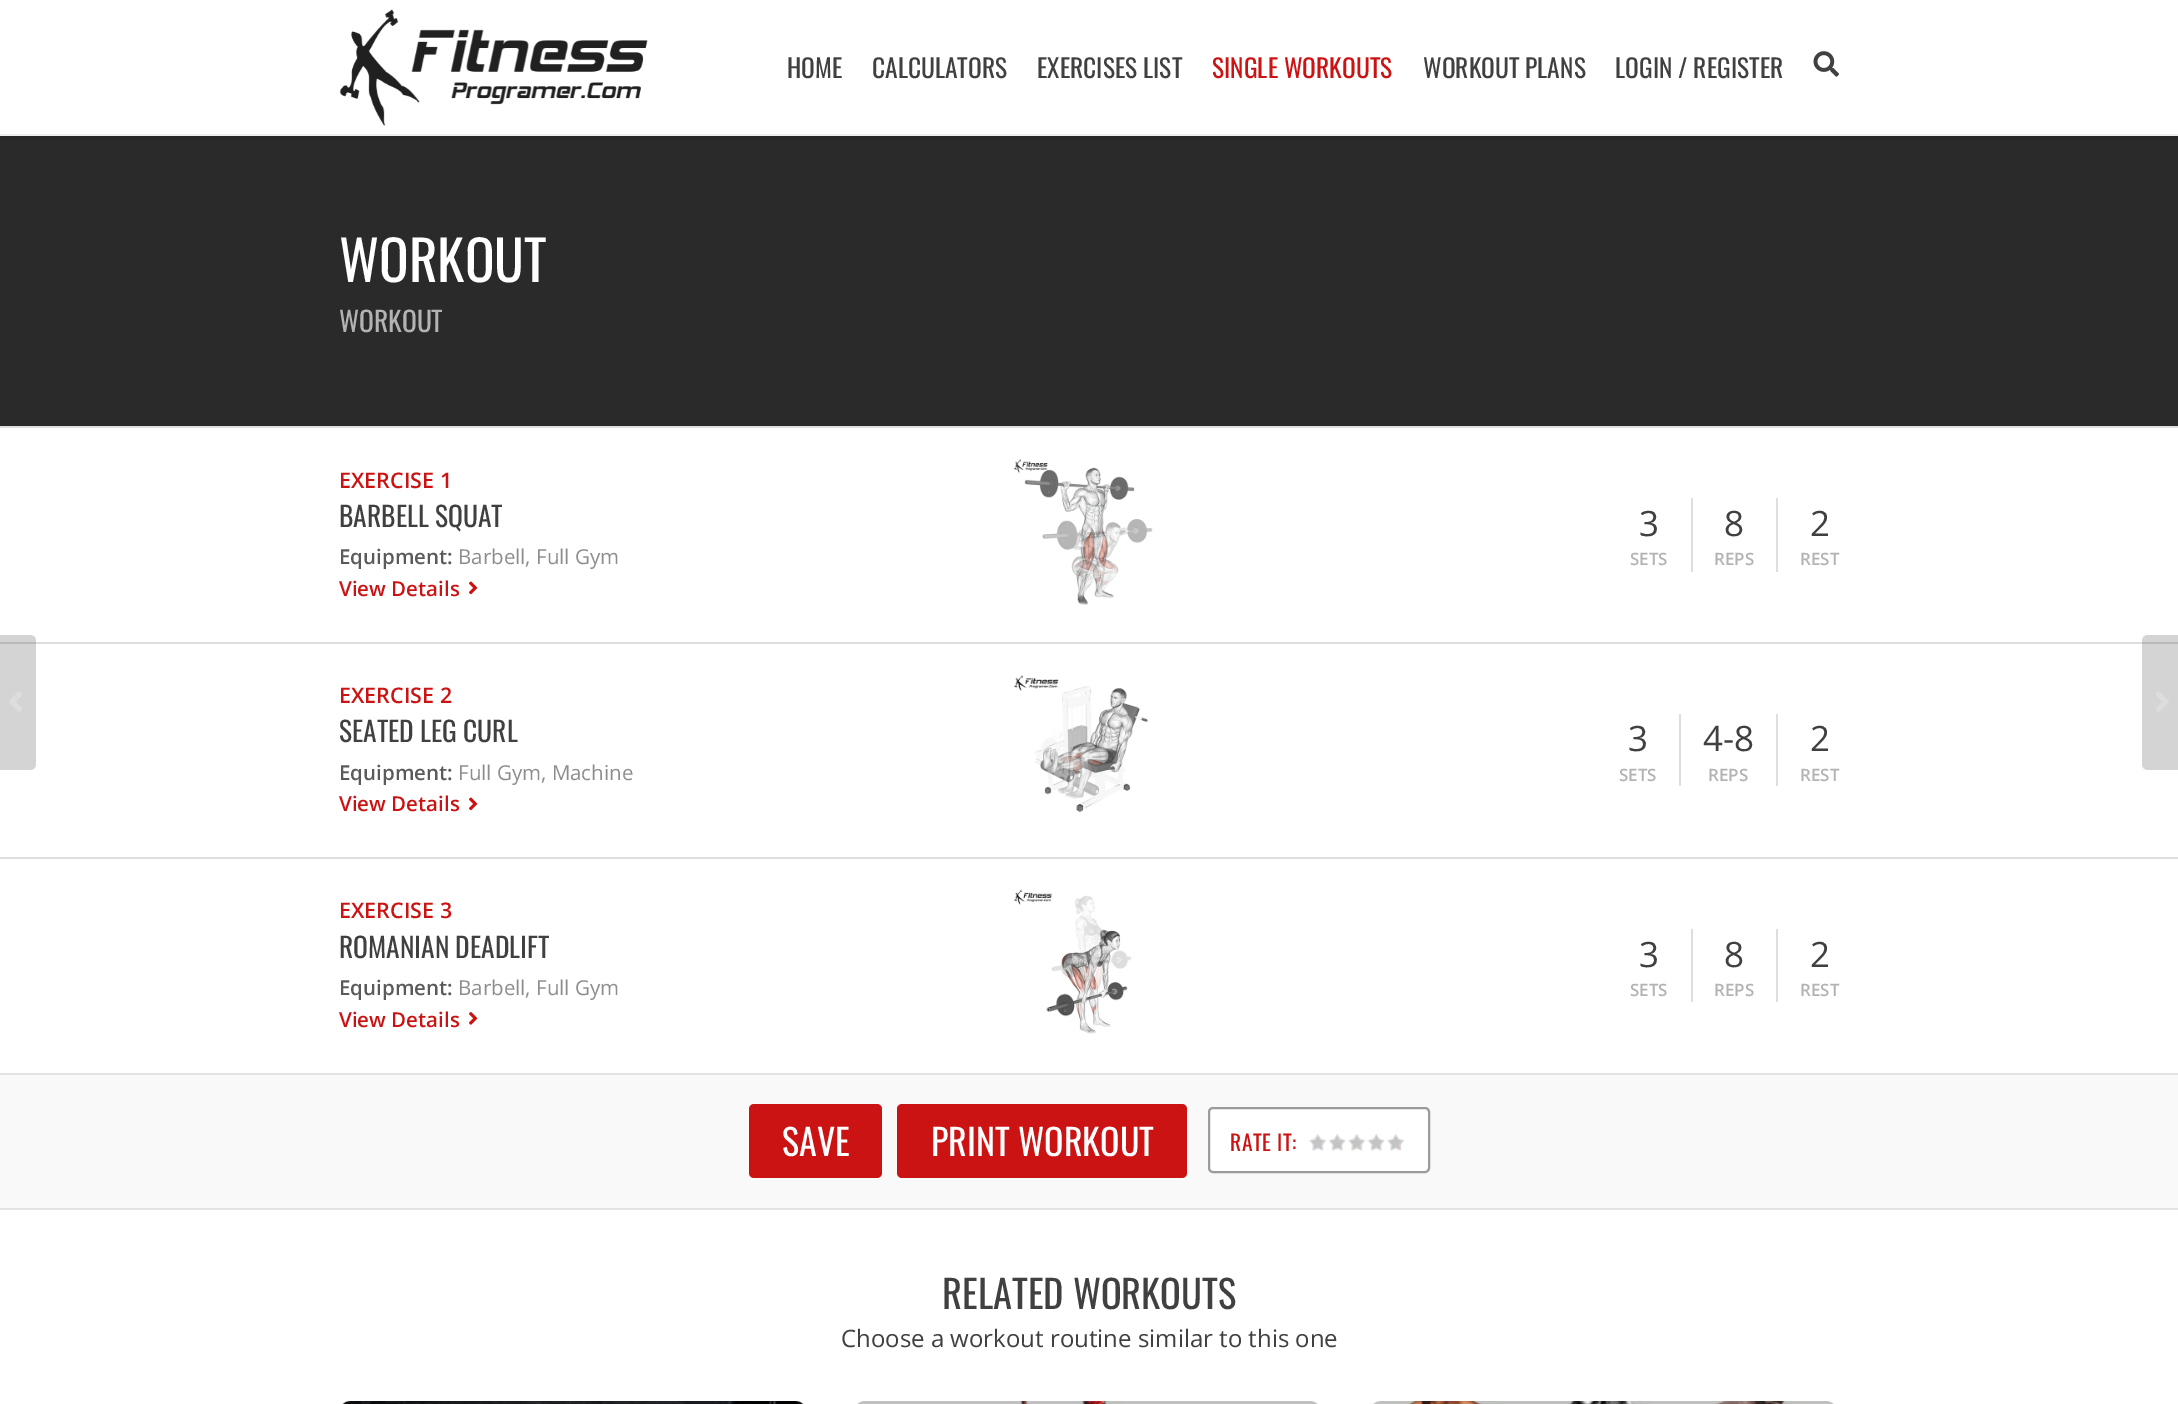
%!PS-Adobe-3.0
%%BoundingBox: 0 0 2178 1404
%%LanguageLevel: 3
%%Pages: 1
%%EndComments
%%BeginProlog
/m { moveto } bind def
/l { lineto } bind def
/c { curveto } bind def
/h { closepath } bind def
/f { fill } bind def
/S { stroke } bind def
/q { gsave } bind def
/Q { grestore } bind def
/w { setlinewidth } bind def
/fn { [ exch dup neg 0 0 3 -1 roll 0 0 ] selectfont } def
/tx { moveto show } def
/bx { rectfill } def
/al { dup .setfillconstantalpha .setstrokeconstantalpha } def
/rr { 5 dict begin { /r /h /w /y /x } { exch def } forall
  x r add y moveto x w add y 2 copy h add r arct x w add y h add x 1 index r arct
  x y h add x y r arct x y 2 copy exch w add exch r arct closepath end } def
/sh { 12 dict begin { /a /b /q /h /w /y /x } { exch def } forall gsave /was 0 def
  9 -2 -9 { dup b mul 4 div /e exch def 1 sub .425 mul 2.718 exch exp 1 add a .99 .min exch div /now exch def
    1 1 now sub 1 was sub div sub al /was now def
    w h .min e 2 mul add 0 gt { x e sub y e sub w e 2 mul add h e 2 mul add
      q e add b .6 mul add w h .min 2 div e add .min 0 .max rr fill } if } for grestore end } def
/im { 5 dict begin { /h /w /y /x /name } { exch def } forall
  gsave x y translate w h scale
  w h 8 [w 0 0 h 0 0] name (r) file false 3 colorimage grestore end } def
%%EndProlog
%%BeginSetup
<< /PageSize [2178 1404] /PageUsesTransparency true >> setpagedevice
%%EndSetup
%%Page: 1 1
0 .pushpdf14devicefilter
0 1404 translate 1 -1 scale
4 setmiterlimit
1 setgray
0 0 2178 1404 bx
0.165 setgray
0 136 2178 290 bx
q
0 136 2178 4 rectclip
0 setgray
0 2 2178 135 0 4 0.1 sh
Q
0.933 setgray
0 134 2178 2 bx
(image0.raw) 339 9 309 117 im
/Oswald-Regular 25.5 fn
0.251 setgray
(HOME) 787 78 tx
(CALCULATORS) 872 78 tx
(EXERCISES LIST) 1037 78 tx
0.796 0.075 0.075 setrgbcolor
(SINGLE WORKOUTS) 1212 78 tx
0.251 setgray
(WORKOUT PLANS) 1423 78 tx
(LOGIN / REGISTER) 1615 78 tx
(image1.raw) 1813 51 26 26 im
0.871 setgray
0 642 2178 2 bx
0.2 al
0.165 setgray
-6 635 m 30 635 l 33.5 635 36 637.5 36 641 c 36 764 l 36 767.5 33.5 770 30 770 c -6 770 l h f
1 al
(image2.raw) 9 691 13 21 im
/Oswald-Regular 55 fn
1 setgray
(WORKOUT) 339 282 tx
/Oswald-Regular 27.5 fn
0.702 setgray
(WORKOUT) 339 332 tx
0.871 setgray
0 426 2178 2 bx
/OpenSans-SemiBold 21.5 fn
0.796 0.075 0.075 setrgbcolor
(EXERCISE 1) 339 488 tx
/Oswald-Regular 27.5 fn
0.251 setgray
(BARBELL SQUAT) 339 527 tx
/OpenSans-SemiBold 20.5 fn
0.353 setgray
(Equipment:) 339 564 tx
/OpenSans-Regular 20.5 fn
0.553 setgray
(Barbell, Full Gym) 458 564 tx
/OpenSans-SemiBold 20.5 fn
0.796 0.075 0.075 setrgbcolor
(View Details) 339 596 tx
(image3.raw) 469 581 9 14 im
(image4.raw) 1014 459 139 146 im
/OpenSans-Regular 35 fn
0.251 setgray
(3) 1639 536 tx
/OpenSans-SemiBold 17 fn
0.702 setgray
(SETS) 1630 565 tx
0.871 setgray
1691 498 2 74 bx
/OpenSans-Regular 35 fn
0.251 setgray
(8) 1724 536 tx
/OpenSans-SemiBold 17 fn
0.702 setgray
(REPS) 1714 565 tx
0.871 setgray
1776 498 2 74 bx
/OpenSans-Regular 35 fn
0.251 setgray
(2) 1810 536 tx
/OpenSans-SemiBold 17 fn
0.702 setgray
(REST) 1800 565 tx
0.871 setgray
0 857 2178 2 bx
/OpenSans-SemiBold 21.5 fn
0.796 0.075 0.075 setrgbcolor
(EXERCISE 2) 339 703 tx
/Oswald-Regular 27.5 fn
0.251 setgray
(SEATED LEG CURL) 339 742 tx
/OpenSans-SemiBold 20.5 fn
0.353 setgray
(Equipment:) 339 780 tx
/OpenSans-Regular 20.5 fn
0.553 setgray
(Full Gym, Machine) 458 780 tx
/OpenSans-SemiBold 20.5 fn
0.796 0.075 0.075 setrgbcolor
(View Details) 339 811 tx
(image3.raw) 469 797 9 14 im
(image5.raw) 1014 675 135 138 im
/OpenSans-Regular 35 fn
0.251 setgray
(3) 1628 751 tx
/OpenSans-SemiBold 17 fn
0.702 setgray
(SETS) 1619 781 tx
0.871 setgray
1679 714 2 72 bx
/OpenSans-Regular 35 fn
0.251 setgray
(4-8) 1703 751 tx
/OpenSans-SemiBold 17 fn
0.702 setgray
(REPS) 1708 781 tx
0.871 setgray
1776 714 2 72 bx
/OpenSans-Regular 35 fn
0.251 setgray
(2) 1810 751 tx
/OpenSans-SemiBold 17 fn
0.702 setgray
(REST) 1800 781 tx
/OpenSans-SemiBold 21.5 fn
0.796 0.075 0.075 setrgbcolor
(EXERCISE 3) 339 918 tx
/Oswald-Regular 27.5 fn
0.251 setgray
(ROMANIAN DEADLIFT) 339 958 tx
/OpenSans-SemiBold 20.5 fn
0.353 setgray
(Equipment:) 339 995 tx
/OpenSans-Regular 20.5 fn
0.553 setgray
(Barbell, Full Gym) 458 995 tx
/OpenSans-SemiBold 20.5 fn
0.796 0.075 0.075 setrgbcolor
(View Details) 339 1027 tx
(image6.raw) 469 1012 9 13 im
(image7.raw) 1014 889 118 145 im
/OpenSans-Regular 35 fn
0.251 setgray
(3) 1639 967 tx
/OpenSans-SemiBold 17 fn
0.702 setgray
(SETS) 1630 996 tx
0.871 setgray
1691 929 2 73 bx
/OpenSans-Regular 35 fn
0.251 setgray
(8) 1724 967 tx
/OpenSans-SemiBold 17 fn
0.702 setgray
(REPS) 1714 996 tx
0.871 setgray
1776 929 2 73 bx
/OpenSans-Regular 35 fn
0.251 setgray
(2) 1810 967 tx
/OpenSans-SemiBold 17 fn
0.702 setgray
(REST) 1800 996 tx
0.976 setgray
0 1075 2178 133 bx
0.89 setgray
0 1073 2178 2 bx
0 1208 2178 2 bx
0.796 0.075 0.075 setrgbcolor
749 1104 133 74 5 rr f
/Oswald-Regular 36 fn
1 setgray
(SAVE) 782 1156 tx
0.796 0.075 0.075 setrgbcolor
897 1104 290 74 5 rr f
1 setgray
(PRINT WORKOUT) 931 1156 tx
1209 1108 220 64 4 rr q f Q
0.608 setgray
2 w
S
/Oswald-Regular 21.5 fn
0.796 0.075 0.075 setrgbcolor
1230 1151 m 0.5 0 (RATE IT:) ashow
(image8.raw) 1309 1134 96 17 im
/Oswald-Regular 38.5 fn
0.251 setgray
(RELATED WORKOUTS) 942 1309 tx
/OpenSans-Regular 24 fn
(Choose a workout routine similar to this one) 841 1347 tx
(image9.raw) 342 1401 462 3 im
(image10.raw) 857 1401 461 3 im
(image11.raw) 1373 1401 461 3 im
0.2 al
0.165 setgray
2148 635 m 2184 635 l 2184 770 l 2148 770 l 2144.5 770 2142 767.5 2142 764 c 2142 641 l 2142 637.5 2144.5 635 2148 635 c h f
1 al
(image12.raw) 2156 691 13 21 im
.poppdf14devicefilter showpage
%%EOF
